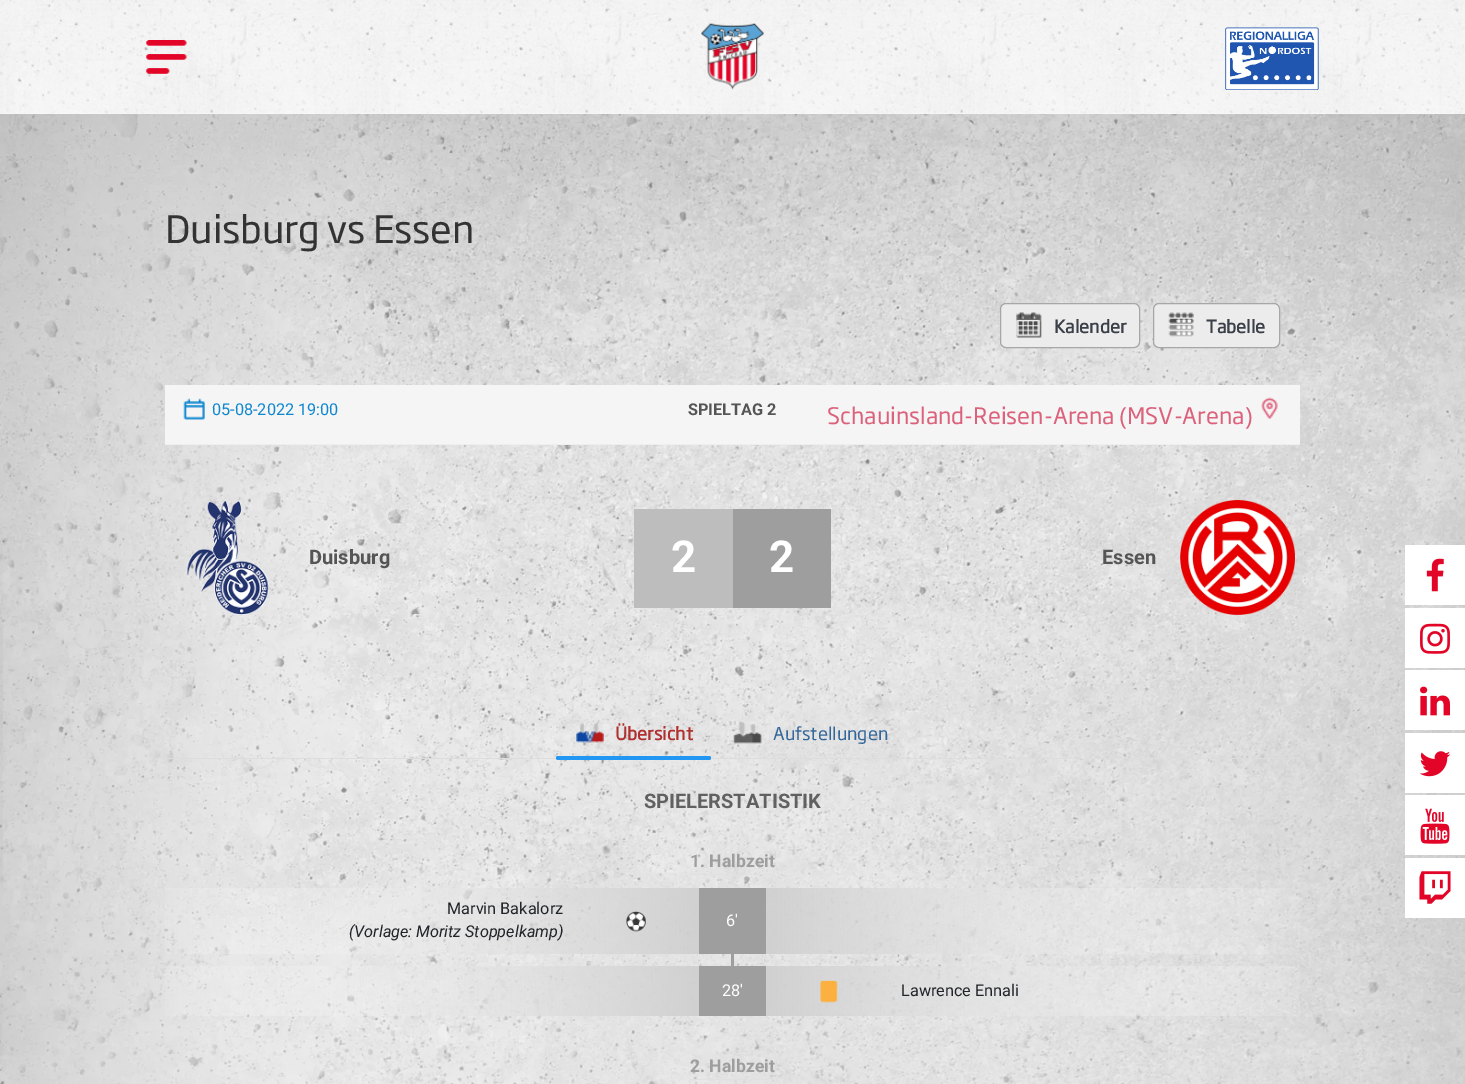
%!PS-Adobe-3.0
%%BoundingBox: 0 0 1465 1084
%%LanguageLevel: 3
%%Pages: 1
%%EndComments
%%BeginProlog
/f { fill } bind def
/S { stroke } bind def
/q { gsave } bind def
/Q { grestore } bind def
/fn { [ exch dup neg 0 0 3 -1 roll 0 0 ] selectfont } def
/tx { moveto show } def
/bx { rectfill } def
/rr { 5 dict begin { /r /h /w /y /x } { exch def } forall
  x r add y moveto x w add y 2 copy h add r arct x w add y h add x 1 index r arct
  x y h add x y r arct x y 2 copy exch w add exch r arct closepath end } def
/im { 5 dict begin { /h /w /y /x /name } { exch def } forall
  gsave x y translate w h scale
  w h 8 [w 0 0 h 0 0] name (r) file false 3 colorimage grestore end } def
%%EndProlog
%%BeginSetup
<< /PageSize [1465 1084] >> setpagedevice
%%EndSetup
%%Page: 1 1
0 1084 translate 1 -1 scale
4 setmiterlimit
1 setgray
0 0 1465 1084 bx
(image0.raw) 0 113 1465 971 im
(image1.raw) 0 0 1465 114 im
(image2.raw) 146 40 41 34 im
(image3.raw) 701 23 63 67 im
(image4.raw) 1225 27 94 63 im
/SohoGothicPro-Regular 37.5 fn
0.2 setgray
(Duisburg vs Essen) 165 243 tx
0.925 setgray
1000.5 303.5 139 44 5.5 rr q f Q
0.655 setgray
S
(image5.raw) 1016 312 26 26 im
/SohoGothicPro-Bold 17.5 fn
0.227 0.247 0.282 setrgbcolor
(Kalender) 1054 333 tx
0.925 setgray
1153.5 303.5 126 44 5.5 rr q f Q
0.655 setgray
S
(image6.raw) 1168 312 26 25 im
0.227 0.247 0.282 setrgbcolor
(Tabelle) 1206 333 tx
0.961 setgray
165 385 1135 59 bx
0.933 setgray
165 444 1135 1 bx
(image7.raw) 183 398 22 22 im
/Roboto-Regular 16.25 fn
0.059 0.529 0.812 setrgbcolor
(05-08-2022 19:00) 212 415 tx
/Roboto-Bold 16.25 fn
0.333 setgray
(SPIELTAG 2) 688 415 tx
/SohoGothicPro-Regular 22.5 fn
0.863 0.38 0.482 setrgbcolor
(Schauinsland-Reisen-Arena \(MSV-Arena\)) 827 424 tx
(image8.raw) 1261 397 17 22 im
(image9.raw) 186 500 84 115 im
/Roboto-Bold 20 fn
0.333 setgray
(Duisburg) 309 564 tx
0.741 setgray
634 509 99 99 bx
/Roboto-Bold 44 fn
1 setgray
(2) 671 572 tx
0.62 setgray
733 509 98 99 bx
1 setgray
(2) 769 572 tx
/Roboto-Bold 20 fn
0.333 setgray
(Essen) 1102 564 tx
(image10.raw) 1180 500 115 115 im
0.867 setgray
165 758 1135 1 bx
(image11.raw) 576 723 28 20 im
/SohoGothicPro-Bold 17.5 fn
0.69 0.188 0.188 setrgbcolor
(Übersicht) 615 740 tx
0.129 0.588 0.953 setrgbcolor
556 756 155 4 2 rr f
(image12.raw) 733 721 29 23 im
/SohoGothicPro-Regular 17.5 fn
0.2 0.4 0.6 setrgbcolor
(Aufstellungen) 773 740 tx
/Roboto-Bold 20 fn
0.38 setgray
(SPIELERSTATISTIK) 644 808 tx
0.878 setgray
690 874 85 1 bx
/Roboto-Bold 17.5 fn
0.62 setgray
(1. Halbzeit) 690 867 tx
/Roboto-Regular 16.25 fn
0.129 0.145 0.161 setrgbcolor
(Marvin Bakalorz) 447 914 tx
/Roboto-Italic 16.25 fn
(\(Vorlage: Moritz Stoppelkamp\)) 349 937 tx
(image13.raw) 626 911 20 21 im
0.62 setgray
699 888 67 66 bx
/Roboto-Regular 16.25 fn
1 setgray
(6') 726 926 tx
0.62 setgray
731 954 3 12 bx
699 966 67 50 bx
1 setgray
(28') 722 996 tx
(image14.raw) 820 980 18 23 im
0.129 0.145 0.161 setrgbcolor
(Lawrence Ennali) 901 996 tx
0.878 setgray
690 1079 85 1 bx
/Roboto-Bold 17.5 fn
0.62 setgray
(2. Halbzeit) 690 1072 tx
1 setgray
1405 545 60 60 bx
(image15.raw) 1426 558 18 34 im
1405 608 60 60 bx
(image16.raw) 1420 623 30 31 im
1405 670 60 60 bx
(image17.raw) 1420 686 30 30 im
1405 733 60 60 bx
(image18.raw) 1419 751 32 26 im
1405 795 60 60 bx
(image19.raw) 1420 808 30 36 im
1405 858 60 60 bx
(image20.raw) 1419 871 32 33 im
showpage
%%EOF
